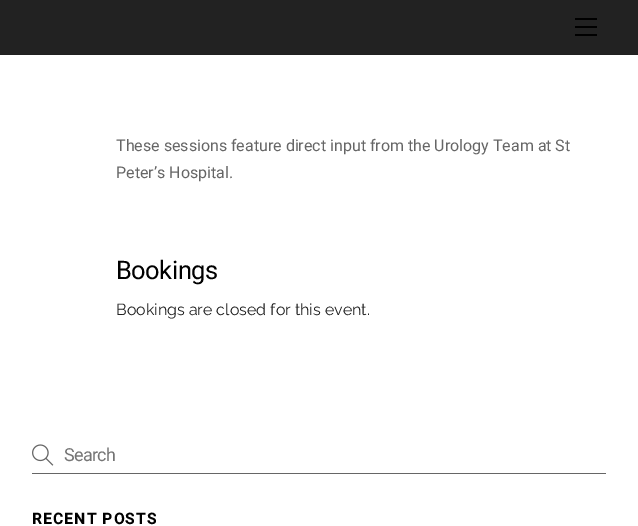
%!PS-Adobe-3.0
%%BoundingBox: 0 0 638 526
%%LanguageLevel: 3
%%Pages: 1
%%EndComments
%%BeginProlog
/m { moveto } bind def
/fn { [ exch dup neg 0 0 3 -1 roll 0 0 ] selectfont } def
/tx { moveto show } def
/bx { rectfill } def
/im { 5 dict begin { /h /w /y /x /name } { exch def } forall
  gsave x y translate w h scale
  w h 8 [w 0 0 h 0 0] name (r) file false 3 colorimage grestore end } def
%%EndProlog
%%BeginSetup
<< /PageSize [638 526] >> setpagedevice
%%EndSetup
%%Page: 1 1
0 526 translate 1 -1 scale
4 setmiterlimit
1 setgray
0 0 638 526 bx
0.133 setgray
0 0 638 54 bx
0.125 setgray
0 54 638 1 bx
0 setgray
575 34 22 2 bx
575 18 22 2 bx
575 26 22 2 bx
/Roboto-Regular 16 fn
0.4 setgray
(These sessions feature direct input from the Urology Team at St) 116 151 tx
(Peter’s Hospital.) 116 178 tx
/Roboto-Regular 25.5 fn
0 setgray
116 279 m -0.5 0 (Bookings) ashow
/Raleway-Regular 16 fn
0.129 setgray
(Bookings are closed for this event.) 116 315 tx
0.4 setgray
32 473 574 1 bx
(image0.raw) 32 444 22 22 im
/Roboto-Regular 18 fn
0.459 setgray
64 461 m -0.75 0 (Search) ashow
/Roboto-Bold 15.25 fn
0 setgray
32 524 m 1.4 0 (RECENT POSTS) ashow
showpage
%%EOF
